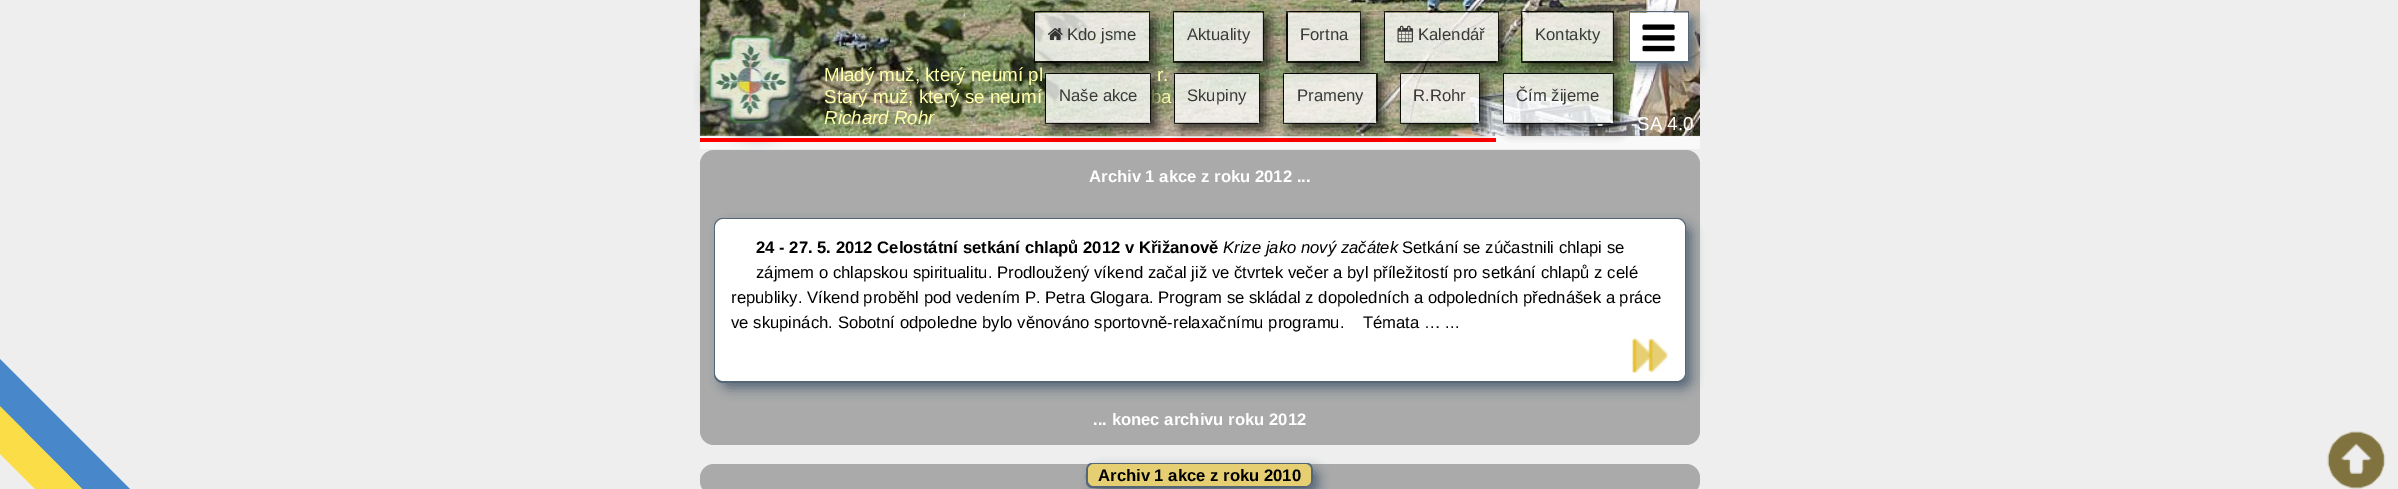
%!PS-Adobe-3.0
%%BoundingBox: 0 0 2398 489
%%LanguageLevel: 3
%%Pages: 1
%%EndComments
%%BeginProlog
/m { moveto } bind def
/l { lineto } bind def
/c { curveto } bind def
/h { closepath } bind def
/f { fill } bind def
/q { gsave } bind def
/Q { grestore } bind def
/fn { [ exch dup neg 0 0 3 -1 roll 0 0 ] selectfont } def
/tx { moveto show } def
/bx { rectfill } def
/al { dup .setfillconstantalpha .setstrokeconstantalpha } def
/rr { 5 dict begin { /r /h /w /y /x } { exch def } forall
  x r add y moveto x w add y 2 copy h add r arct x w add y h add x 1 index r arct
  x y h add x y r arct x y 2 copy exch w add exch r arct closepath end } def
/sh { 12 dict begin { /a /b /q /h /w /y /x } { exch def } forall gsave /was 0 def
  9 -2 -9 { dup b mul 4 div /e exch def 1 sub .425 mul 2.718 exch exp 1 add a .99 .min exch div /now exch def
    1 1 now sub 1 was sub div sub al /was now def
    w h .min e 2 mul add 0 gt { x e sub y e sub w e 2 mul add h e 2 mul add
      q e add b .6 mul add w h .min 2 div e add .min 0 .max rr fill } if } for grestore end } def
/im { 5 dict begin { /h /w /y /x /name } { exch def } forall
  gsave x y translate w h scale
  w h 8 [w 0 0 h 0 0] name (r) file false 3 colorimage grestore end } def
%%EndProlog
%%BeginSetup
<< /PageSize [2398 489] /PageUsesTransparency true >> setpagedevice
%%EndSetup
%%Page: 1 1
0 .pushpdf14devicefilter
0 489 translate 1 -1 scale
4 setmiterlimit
0.933 setgray
0 0 2398 489 bx
0.278 0.529 0.792 setrgbcolor
-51 330 m -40 319 l 137 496 l 113 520 l -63 343 l h f
0.98 0.867 0.278 setrgbcolor
-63 343 m 113 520 l 90 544 l -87 367 l h f
0.333 0.4 0.467 setrgbcolor
1094 108 224 22 6 6 1 sh
(image3.raw) 699 0 1001 137 im
q
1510 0 m 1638 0 l 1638 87 l 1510 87 l h 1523 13 m 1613 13 l 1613 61 l 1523 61 l h eoclip newpath
0 setgray
1529 19 90 49 0 6 0.75 sh
Q
0.75 al
0 setgray
1521 11 m 1521 60 l 1522 60 l 1522 12 l 1611 12 l 1611 11 l h f
1524 11 m 1524 12 l 1612 12 l 1612 60 l 1614 60 l 1614 11 l h f
1521 14 m 1521 63 l 1611 63 l 1611 61 l 1522 61 l 1522 14 l h f
q
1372 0 m 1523 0 l 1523 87 l 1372 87 l h 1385 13 m 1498 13 l 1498 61 l 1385 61 l h eoclip newpath
1 al
1391 19 113 49 0 6 0.75 sh
Q
1384 11 m 1384 60 l 1385 60 l 1385 12 l 1496 12 l 1496 11 l h f
1386 11 m 1386 12 l 1498 12 l 1498 60 l 1499 60 l 1499 11 l h f
1384 14 m 1384 63 l 1496 63 l 1496 61 l 1385 61 l 1385 14 l h f
q
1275 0 m 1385 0 l 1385 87 l 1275 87 l h 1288 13 m 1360 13 l 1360 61 l 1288 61 l h eoclip newpath
1 al
1294 19 72 49 0 6 0.75 sh
Q
1286 11 m 1286 60 l 1288 60 l 1288 12 l 1359 12 l 1359 11 l h f
1289 11 m 1289 12 l 1360 12 l 1360 60 l 1361 60 l 1361 11 l h f
1286 14 m 1286 63 l 1359 63 l 1359 61 l 1288 61 l 1288 14 l h f
q
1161 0 m 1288 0 l 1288 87 l 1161 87 l h 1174 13 m 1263 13 l 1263 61 l 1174 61 l h eoclip newpath
1 al
1180 19 89 49 0 6 0.75 sh
Q
1173 11 m 1173 60 l 1174 60 l 1174 12 l 1261 12 l 1261 11 l h f
1175 11 m 1175 12 l 1262 12 l 1262 60 l 1264 60 l 1264 11 l h f
1173 14 m 1173 63 l 1261 63 l 1261 61 l 1174 61 l 1174 14 l h f
q
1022 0 m 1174 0 l 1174 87 l 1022 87 l h 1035 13 m 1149 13 l 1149 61 l 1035 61 l h eoclip newpath
1 al
1041 19 114 49 0 6 0.75 sh
Q
1034 11 m 1034 60 l 1035 60 l 1035 12 l 1148 12 l 1148 11 l h f
1036 11 m 1036 12 l 1149 12 l 1149 60 l 1150 60 l 1150 11 l h f
1034 14 m 1034 63 l 1148 63 l 1148 61 l 1035 61 l 1035 14 l h f
1 setgray
1035 13 114 48 bx
1 al
(image0.raw) 1047 28 16 12 im
/LiberationSans-Regular 16.67 fn
0.224 0.227 0.216 setrgbcolor
(Kdo jsme) 1067 40 tx
0.75 al
1 setgray
1174 13 89 48 bx
1 al
0.224 0.227 0.216 setrgbcolor
(Aktuality) 1187 40 tx
0.75 al
1 setgray
1288 13 72 48 bx
1 al
0.224 0.227 0.216 setrgbcolor
(Fortna) 1300 40 tx
0.75 al
1 setgray
1385 13 113 48 bx
1 al
(image1.raw) 1397 25 16 18 im
0.224 0.227 0.216 setrgbcolor
(Kalendář) 1418 40 tx
0.75 al
1 setgray
1523 13 90 48 bx
1 al
0.224 0.227 0.216 setrgbcolor
(Kontakty) 1535 40 tx
0.67 al
1 setgray
700 136 1000 13 bx
1 al
(image4.raw) 693 22 126 128 im
1 0 0 setrgbcolor
700 138 796 4 bx
q
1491 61 m 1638 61 l 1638 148 l 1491 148 l h 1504 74 m 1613 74 l 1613 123 l 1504 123 l h eoclip newpath
0 setgray
1510 80 109 49 0 6 0.75 sh
Q
0.75 al
0 setgray
1503 73 m 1503 121 l 1504 121 l 1504 74 l 1611 74 l 1611 73 l h f
1505 73 m 1505 74 l 1612 74 l 1612 121 l 1614 121 l 1614 73 l h f
1503 75 m 1503 124 l 1611 124 l 1611 122 l 1504 122 l 1504 75 l h f
q
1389 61 m 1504 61 l 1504 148 l 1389 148 l h 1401 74 m 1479 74 l 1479 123 l 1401 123 l h eoclip newpath
1 al
1408 80 77 49 0 6 0.75 sh
Q
1400 73 m 1400 121 l 1401 121 l 1401 74 l 1478 74 l 1478 73 l h f
1403 73 m 1403 74 l 1479 74 l 1479 121 l 1480 121 l 1480 73 l h f
1400 75 m 1400 124 l 1478 124 l 1478 122 l 1401 122 l 1401 75 l h f
1 setgray
1401 74 78 49 bx
q
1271 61 m 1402 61 l 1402 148 l 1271 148 l h 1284 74 m 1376 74 l 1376 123 l 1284 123 l h eoclip newpath
1 al
0 setgray
1290 80 93 49 0 6 0.75 sh
Q
0 setgray
1283 73 m 1283 121 l 1284 121 l 1284 74 l 1375 74 l 1375 73 l h f
1285 73 m 1285 74 l 1376 74 l 1376 121 l 1378 121 l 1378 73 l h f
1283 75 m 1283 124 l 1375 124 l 1375 122 l 1284 122 l 1284 75 l h f
q
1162 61 m 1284 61 l 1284 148 l 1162 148 l h 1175 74 m 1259 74 l 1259 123 l 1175 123 l h eoclip newpath
1 al
1181 80 84 49 0 6 0.75 sh
Q
/LiberationSans-Regular 18.75 fn
1 al
1 1 0.667 setrgbcolor
(ba.) 1151 103 tx
0.75 al
0 setgray
1174 73 m 1174 121 l 1175 121 l 1175 74 l 1258 74 l 1258 73 l h f
1176 73 m 1176 74 l 1259 74 l 1259 121 l 1260 121 l 1260 73 l h f
1174 75 m 1174 124 l 1258 124 l 1258 122 l 1175 122 l 1175 75 l h f
q
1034 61 m 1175 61 l 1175 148 l 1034 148 l h 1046 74 m 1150 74 l 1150 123 l 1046 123 l h eoclip newpath
1 al
1053 80 103 49 0 6 0.75 sh
Q
1045 73 m 1045 121 l 1046 121 l 1046 74 l 1149 74 l 1149 73 l h f
1048 73 m 1048 74 l 1150 74 l 1150 121 l 1151 121 l 1151 73 l h f
1045 75 m 1045 124 l 1149 124 l 1149 122 l 1046 122 l 1046 75 l h f
1 setgray
1046 74 104 49 bx
/LiberationSans-Regular 16.67 fn
1 al
0.224 0.227 0.216 setrgbcolor
(Naše akce) 1059 101 tx
0.75 al
1 setgray
1175 74 84 49 bx
1 al
0.224 0.227 0.216 setrgbcolor
(Skupiny) 1187 101 tx
0.75 al
1 setgray
1284 74 92 49 bx
1 al
0.224 0.227 0.216 setrgbcolor
(Prameny) 1297 101 tx
(R.Rohr) 1413 101 tx
0.75 al
1 setgray
1504 74 109 49 bx
1 al
0.224 0.227 0.216 setrgbcolor
(Čím žijeme) 1516 101 tx
0.333 0.4 0.467 setrgbcolor
1636 19 58 49 0 6 1 sh
1629 11 m 1629 60 l 1630 60 l 1630 12 l 1686 12 l 1686 11 l h f
1631 11 m 1631 12 l 1688 12 l 1688 60 l 1689 60 l 1689 11 l h f
1629 14 m 1629 63 l 1686 63 l 1686 61 l 1630 61 l 1630 14 l h f
1 setgray
1630 13 58 48 bx
(image2.raw) 1642 24 33 28 im
/LiberationSans-Regular 18.75 fn
1 1 0.667 setrgbcolor
(Mladý muž, který neumí pl) 824 81 tx
(r.) 1157 81 tx
(Starý muž, který se neumí) 824 103 tx
/LiberationSans-Italic 18.75 fn
(Richard Rohr) 824 124 tx
/LiberationSans-Regular 18.75 fn
1 setgray
(-) 1597 130 tx
(-SA 4.0) 1631 130 tx
0.667 setgray
700 150 1000 295 14 rr f
/LiberationSans-Bold 16.67 fn
1 setgray
(Archiv 1 akce z roku 2012 ...) 1089 182 tx
0.333 0.4 0.467 setrgbcolor
721 225 970 163 9 6 1 sh
723 218 m 718 218 714 222 714 227 c 714 371 l 714 373 715 375 716 376 c 715 373 l 715 227 l 715 222 719 219 723 219 c 1677 219 l 1680 219 l 1675 218 l h f
725 218 m 720 219 l 723 219 l 1677 219 l 1681 219 1685 222 1685 227 c 1685 373 l 1684 376 l 1685 375 1686 373 1686 371 c 1686 227 l 1686 222 1682 218 1677 218 c h f
716 224 m 715 225 714 227 714 229 c 714 374 l 714 379 718 383 723 383 c 1675 383 l 1678 383 1681 381 1683 379 c 1681 380 1679 381 1677 381 c 723 381 l 719 381 715 378 715 373 c 715 227 l h f
1 setgray
715 219 970 162 9 rr f
(image5.raw) 1631 338 37 35 im
0 setgray
(24 - 27. 5. 2012 Celostátní setkání chlapů 2012 v Křižanově) 756 253 tx
/LiberationSans-Italic 16.67 fn
(Krize jako nový začátek) 1223 253 tx
/LiberationSans-Regular 16.67 fn
(Setkání se zúčastnili chlapi se) 1402 253 tx
(zájmem o chlapskou spiritualitu. Prodloužený víkend začal již ve čtvrtek večer a byl příležitostí pro setkání chlapů z celé) 756 278 tx
(republiky. Víkend proběhl pod vedením P. Petra Glogara. Program se skládal z dopoledních a odpoledních přednášek a práce) 731 303 tx
(ve skupinách. Sobotní odpoledne bylo věnováno sportovně-relaxačnímu programu.    Témata … ...) 731 328 tx
/LiberationSans-Bold 16.67 fn
1 setgray
(... konec archivu roku 2012) 1093 425 tx
0.667 setgray
700 464 1000 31 14 rr f
0.333 0.4 0.467 setrgbcolor
1094 470 224 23 6 6 1 sh
1092 463 m 1086 463 1086 470 1086 474 c 1086 478 1085 483 1090 485 c 1087 482 1088 478 1088 475 c 1088 470 1088 464 1094 464 c 1305 464 l 1308 465 l 1307 464 1306 463 1304 463 c h f
1095 463 m 1093 463 1092 464 1091 465 c 1094 464 l 1306 464 l 1312 465 1311 471 1311 475 c 1311 478 1312 482 1309 485 c 1314 483 1313 478 1313 474 c 1313 470 1313 463 1307 463 c h f
1090 465 m 1088 466 1086 468 1086 471 c 1086 482 l 1086 485 1089 488 1092 488 c 1304 488 l 1307 488 1309 486 1310 484 c 1308 485 1307 486 1305 486 c 1094 486 l 1090 486 1088 483 1088 480 c 1088 470 l 1088 468 1088 467 1090 465 c h f
0.902 0.812 0.451 setrgbcolor
1088 464 223 22 6 rr f
0 setgray
(Archiv 1 akce z roku 2010) 1098 481 tx
(image6.raw) 2327 431 59 58 im
.poppdf14devicefilter showpage
%%EOF
